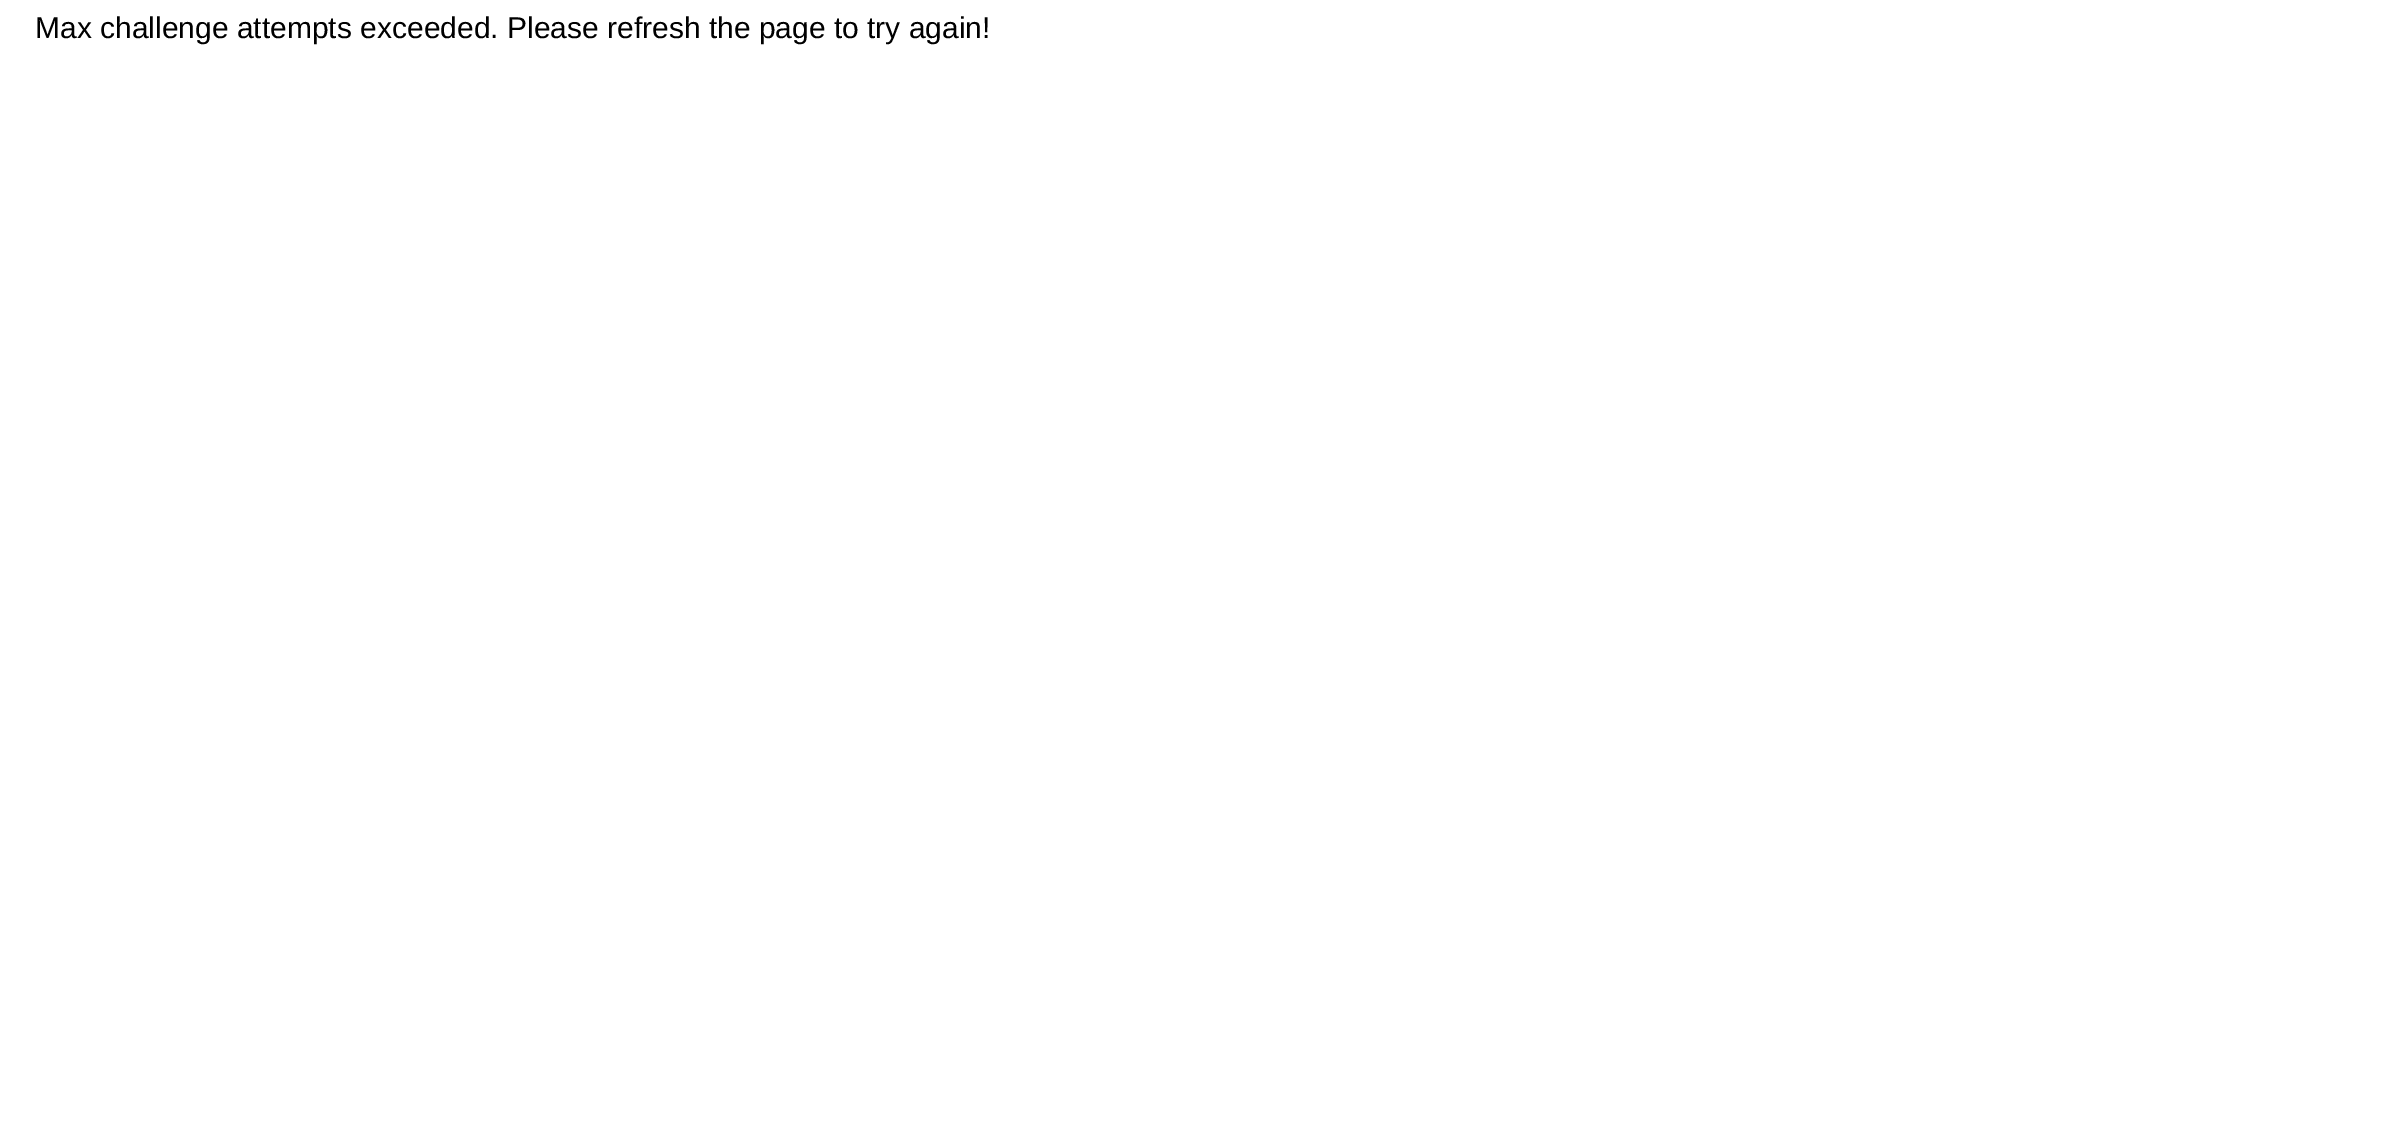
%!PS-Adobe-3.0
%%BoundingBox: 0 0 2382 1148
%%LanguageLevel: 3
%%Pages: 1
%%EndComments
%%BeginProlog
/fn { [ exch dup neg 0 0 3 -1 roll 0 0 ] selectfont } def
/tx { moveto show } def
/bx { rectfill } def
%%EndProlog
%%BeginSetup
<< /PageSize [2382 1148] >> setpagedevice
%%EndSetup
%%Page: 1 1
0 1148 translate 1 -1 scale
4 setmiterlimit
1 setgray
0 0 2382 1148 bx
/LiberationSans-Regular 30 fn
0 setgray
(Max challenge attempts exceeded. Please refresh the page to try again!) 35 38 tx
showpage
%%EOF
